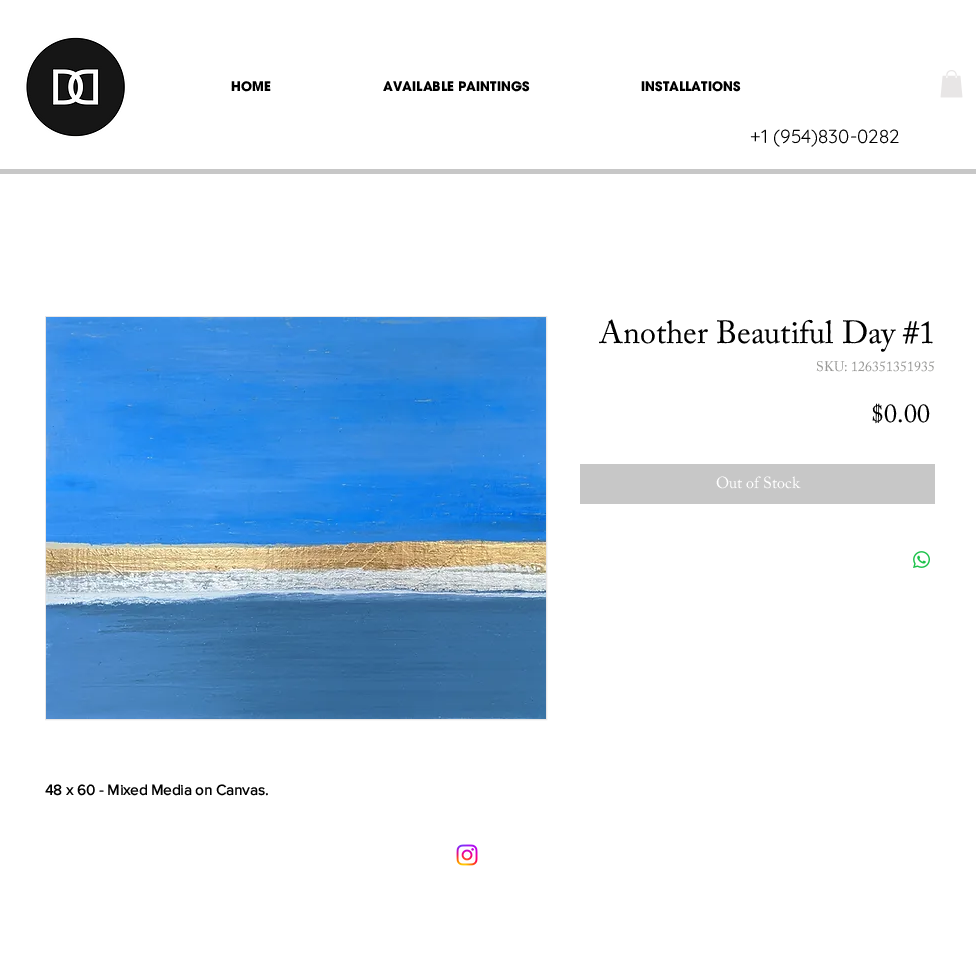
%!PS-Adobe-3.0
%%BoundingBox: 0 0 976 963
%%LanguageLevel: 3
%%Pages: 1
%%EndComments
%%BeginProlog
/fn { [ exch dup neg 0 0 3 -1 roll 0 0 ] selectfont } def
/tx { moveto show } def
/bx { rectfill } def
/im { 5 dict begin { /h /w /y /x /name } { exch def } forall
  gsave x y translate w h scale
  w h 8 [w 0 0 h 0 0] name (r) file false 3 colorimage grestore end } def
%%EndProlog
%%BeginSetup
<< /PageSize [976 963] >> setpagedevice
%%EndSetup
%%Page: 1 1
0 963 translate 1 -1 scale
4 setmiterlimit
1 setgray
0 0 976 963 bx
(image0.raw) 24 36 103 102 im
/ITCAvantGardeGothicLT-Bold 13 fn
0 setgray
(HOME) 231 91 tx
(AVAILABLE PAINTINGS) 383 91 tx
(INSTALLATIONS) 641 91 tx
(image1.raw) 940 70 23 28 im
/Quicksand-Regular 19 fn
(+1 \(954\)830-0282) 750 143 tx
0.78 setgray
0 169 976 5 bx
/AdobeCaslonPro-Regular 32 fn
0 setgray
(Another Beautiful Day #1) 599 343 tx
/AdobeCaslonPro-Regular 14 fn
0.6 0.6 0.592 setrgbcolor
(SKU: 126351351935) 816 371 tx
/AdobeCaslonPro-Regular 26 fn
0 setgray
($0.00) 871 422 tx
0.78 setgray
580 464 355 40 bx
/AdobeCaslonPro-Regular 16 fn
1 setgray
(Out of Stock) 716 488 tx
(image2.raw) 913 551 17 17 im
0.91 0.902 0.902 setrgbcolor
45.5 316.5 501 403 rectstroke
(image3.raw) 46 317 500 402 im
/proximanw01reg-Bold 15 fn
0 setgray
(48 x 60 - Mixed Media on Canvas.) 45 795 tx
(image4.raw) 456 844 22 22 im
showpage
%%EOF
